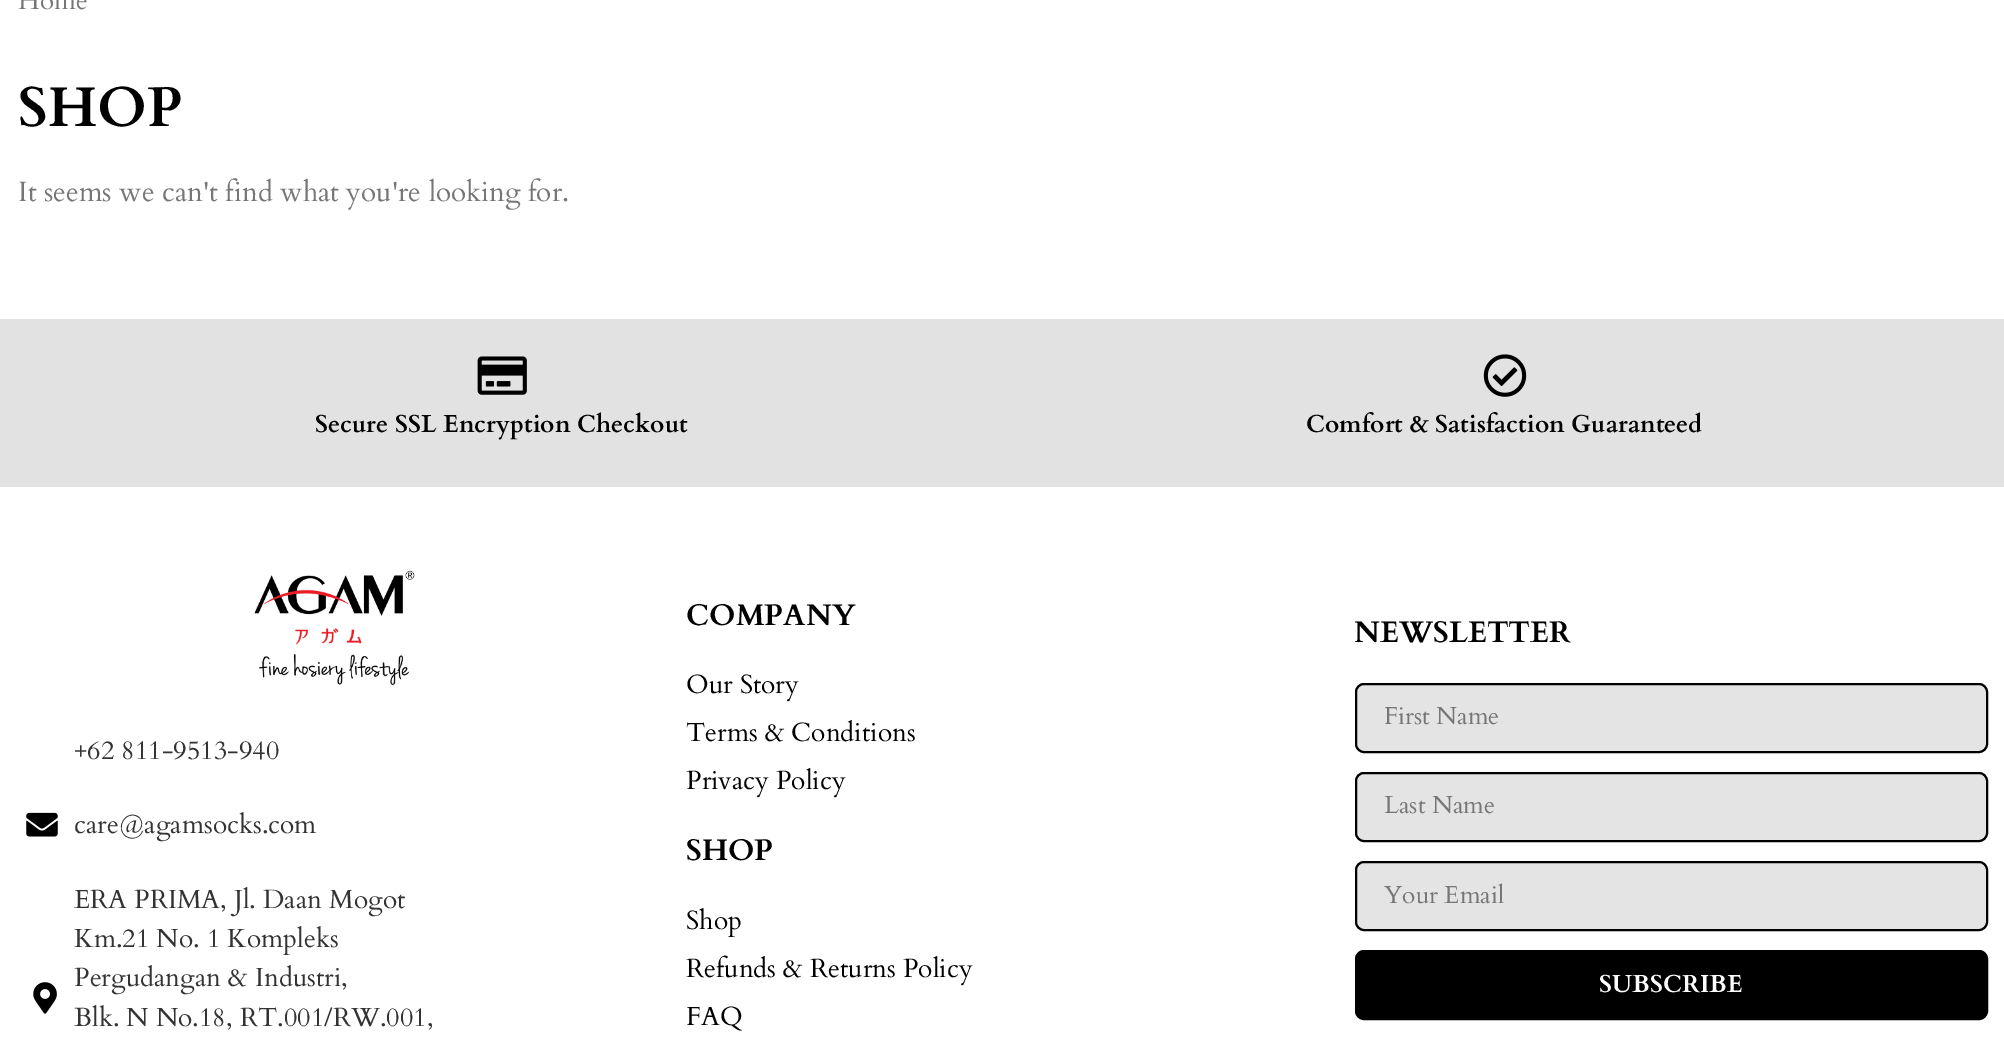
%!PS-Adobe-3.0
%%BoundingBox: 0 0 2004 1046
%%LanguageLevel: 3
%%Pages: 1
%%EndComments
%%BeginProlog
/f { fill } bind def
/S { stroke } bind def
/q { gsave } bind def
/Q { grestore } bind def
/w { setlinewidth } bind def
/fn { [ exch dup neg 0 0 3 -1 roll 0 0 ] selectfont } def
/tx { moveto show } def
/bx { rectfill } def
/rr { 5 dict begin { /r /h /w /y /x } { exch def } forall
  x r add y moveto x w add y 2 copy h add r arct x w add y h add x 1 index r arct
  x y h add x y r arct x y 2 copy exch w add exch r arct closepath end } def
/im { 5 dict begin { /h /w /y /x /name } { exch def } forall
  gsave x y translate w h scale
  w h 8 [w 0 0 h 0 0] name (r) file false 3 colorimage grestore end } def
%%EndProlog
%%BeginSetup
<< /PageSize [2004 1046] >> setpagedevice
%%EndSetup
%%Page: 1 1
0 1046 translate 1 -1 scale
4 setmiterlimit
1 setgray
0 0 2004 1046 bx
/Cardo-Regular 26 fn
0.463 setgray
(Home) 18 9 tx
/Cardo-Bold 56 fn
0 setgray
(SHOP) 18 126 tx
/Cardo-Regular 28 fn
0.463 setgray
(It seems we can't find what you're looking for.) 18 201 tx
0.886 setgray
0 319 2004 168 bx
(image0.raw) 477 356 50 39 im
/Cardo-Bold 24.5 fn
0 setgray
(Secure SSL Encryption Checkout) 315 432 tx
(image1.raw) 1483 354 44 43 im
(Comfort & Satisfaction Guaranteed) 1306 432 tx
(image2.raw) 254 570 161 115 im
/Cardo-Regular 26.25 fn
0.2 setgray
(+62 811-9513-940) 74 759 tx
(image3.raw) 26 812 32 25 im
(care@agamsocks.com) 74 833 tx
(image4.raw) 33 982 24 32 im
(ERA PRIMA, Jl. Daan Mogot) 74 908 tx
(Km.21 No. 1 Kompleks) 74 947 tx
(Pergudangan & Industri,) 74 986 tx
(Blk. N No.18, RT.001/RW.001,) 74 1026 tx
/Cardo-Bold 29.75 fn
0 setgray
(COMPANY) 686 625 tx
/Cardo-Regular 26.25 fn
(Our Story) 686 693 tx
(Terms & Conditions) 686 741 tx
(Privacy Policy) 686 789 tx
/Cardo-Bold 29.75 fn
(SHOP) 686 860 tx
/Cardo-Regular 26.25 fn
(Shop) 686 929 tx
(Refunds & Returns Policy) 686 977 tx
(FAQ) 686 1025 tx
/Cardo-Bold 29.75 fn
(NEWSLETTER) 1354 642 tx
0.894 setgray
1356 684 631 68 8 rr q f Q
0 setgray
2 w
S
/Cardo-Regular 24.5 fn
0.463 setgray
(First Name) 1384 724 tx
0.894 setgray
1356 773 631 68 8 rr q f Q
0 setgray
S
0.463 setgray
(Last Name) 1384 813 tx
0.894 setgray
1356 862 631 68 8 rr q f Q
0 setgray
S
0.463 setgray
(Your Email) 1384 903 tx
0 setgray
1357.5 952.5 628 65 6.5 rr q f Q
5 w
S
/Cardo-Bold 24.5 fn
1 setgray
(SUBSCRIBE) 1599 992 tx
showpage
%%EOF
